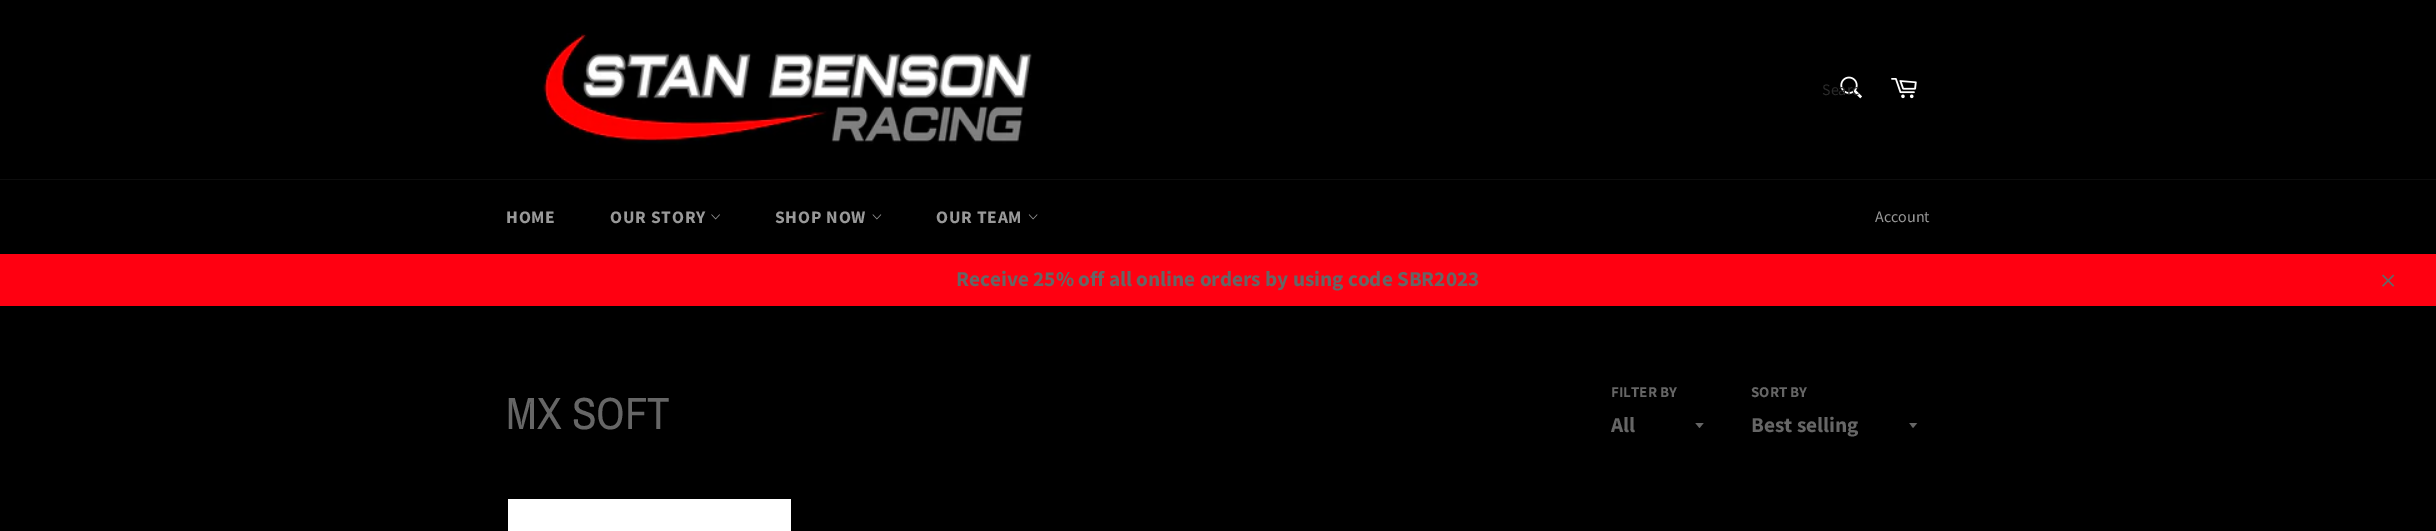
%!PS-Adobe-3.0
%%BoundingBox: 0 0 2436 531
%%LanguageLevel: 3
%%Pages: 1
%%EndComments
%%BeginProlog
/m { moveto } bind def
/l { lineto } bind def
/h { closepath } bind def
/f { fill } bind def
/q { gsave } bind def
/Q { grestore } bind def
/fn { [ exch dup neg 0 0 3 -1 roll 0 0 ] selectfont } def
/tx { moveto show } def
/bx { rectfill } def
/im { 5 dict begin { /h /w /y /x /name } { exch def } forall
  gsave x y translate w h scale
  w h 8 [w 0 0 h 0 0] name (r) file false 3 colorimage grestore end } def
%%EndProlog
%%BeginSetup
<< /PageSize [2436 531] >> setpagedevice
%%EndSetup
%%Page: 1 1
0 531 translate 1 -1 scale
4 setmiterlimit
0 setgray
0 0 2436 531 bx
(image0.raw) 540 33 492 112 im
(image1.raw) 1840 76 22 23 im
/SourceSansPro-Regular 16 fn
0.169 setgray
(Searc) 1822 95 tx
(image2.raw) 1891 78 26 21 im
0.051 setgray
0 179 2436 1 bx
/SourceSansPro-Bold 17.5 fn
0.6 setgray
506 223 m 0.75 0 (HOME) ashow
610 223 m 0.75 0 (OUR STORY) ashow
(image3.raw) 711 214 9 6 im
775 223 m 0.75 0 (SHOP NOW) ashow
(image4.raw) 872 214 10 6 im
936 223 m 0.75 0 (OUR TEAM) ashow
(image5.raw) 1028 214 10 6 im
/SourceSansPro-Regular 16 fn
(Account) 1875 222 tx
1 0 0.067 setrgbcolor
0 254 2436 52 bx
/SourceSansPro-Bold 21.25 fn
0.4 setgray
(Receive 25% off all online orders by using code SBR2023) 956 286 tx
(image6.raw) 2382 274 13 13 im
/ArchivoNarrow-Regular 45 fn
(MX SOFT) 506 429 tx
/SourceSansPro-Bold 15 fn
(FILTER BY) 1611 397 tx
q
1695 423 10 6 rectclip
1695 422.5 m 1699.5 428 l 1704 422.5 l h f
Q
/SourceSansPro-Bold 21.25 fn
(All) 1611 432 tx
/SourceSansPro-Bold 15 fn
(SORT BY) 1751 397 tx
q
1909 423 10 6 rectclip
1909 422.5 m 1913 428 l 1917.5 422.5 l h f
Q
/SourceSansPro-Bold 21.25 fn
(Best selling) 1751 432 tx
1 setgray
508 499 283 32 bx
showpage
%%EOF
